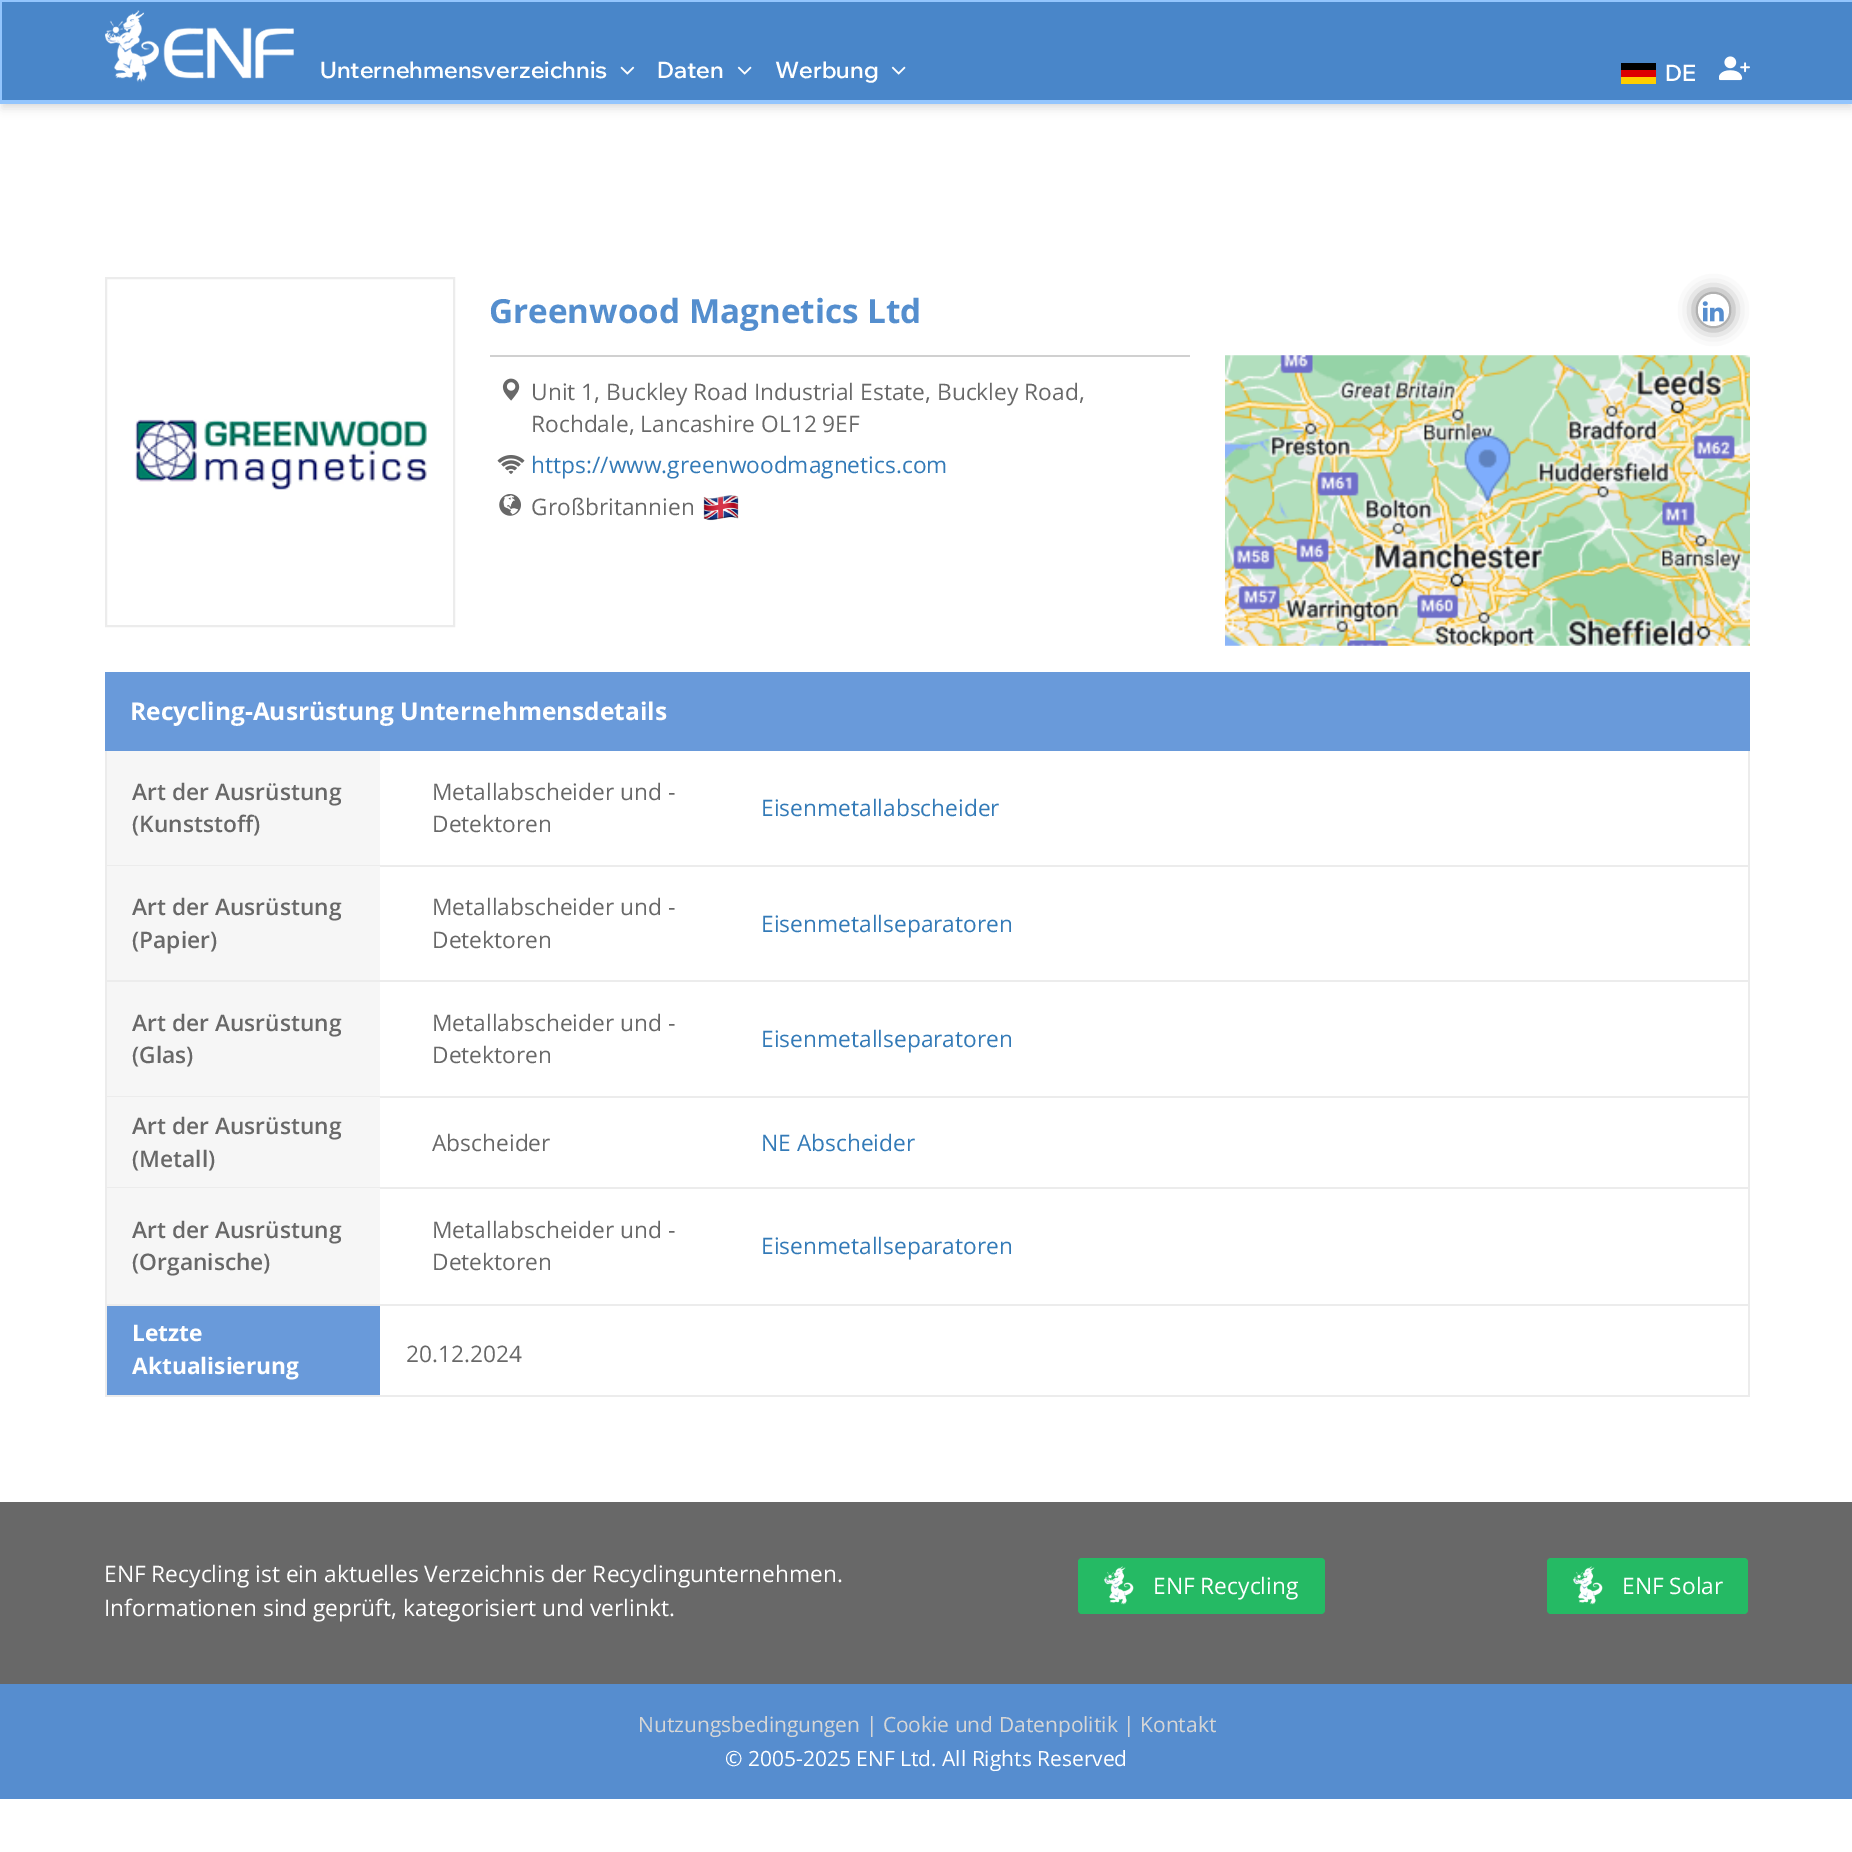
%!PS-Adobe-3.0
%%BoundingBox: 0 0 1852 1852
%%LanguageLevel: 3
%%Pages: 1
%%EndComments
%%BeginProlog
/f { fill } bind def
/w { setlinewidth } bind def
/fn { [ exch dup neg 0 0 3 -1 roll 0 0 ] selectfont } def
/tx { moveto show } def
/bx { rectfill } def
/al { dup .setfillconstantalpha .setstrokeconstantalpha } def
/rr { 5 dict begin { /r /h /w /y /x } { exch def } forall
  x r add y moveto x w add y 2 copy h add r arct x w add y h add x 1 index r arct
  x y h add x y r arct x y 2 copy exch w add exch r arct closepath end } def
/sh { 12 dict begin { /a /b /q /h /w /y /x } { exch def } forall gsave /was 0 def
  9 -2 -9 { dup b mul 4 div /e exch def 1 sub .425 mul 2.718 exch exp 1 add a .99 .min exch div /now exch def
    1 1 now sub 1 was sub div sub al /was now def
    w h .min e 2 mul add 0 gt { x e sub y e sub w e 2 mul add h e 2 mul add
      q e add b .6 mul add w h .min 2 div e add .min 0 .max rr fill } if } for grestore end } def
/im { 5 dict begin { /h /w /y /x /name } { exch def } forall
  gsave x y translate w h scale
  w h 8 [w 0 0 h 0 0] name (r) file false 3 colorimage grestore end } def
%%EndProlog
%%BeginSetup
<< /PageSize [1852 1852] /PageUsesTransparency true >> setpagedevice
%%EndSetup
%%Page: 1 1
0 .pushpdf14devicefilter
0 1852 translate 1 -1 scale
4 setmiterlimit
1 setgray
0 0 1852 1852 bx
0 setgray
2 5 1850 100 0 3.5 0.06 sh
2 9 1850 100 0 5 0.1 sh
0.286 0.525 0.788 setrgbcolor
2 2 1850 98 bx
0.576 0.773 0.992 setrgbcolor
0 0 1852 2 bx
0 100 1852 4 bx
0 0 2 103 bx
(image0.raw) 105 10 189 73 im
/WixMadeforDisplay-SemiBold 22.75 fn
1 setgray
(Unternehmensverzeichnis) 320 78 tx
(image1.raw) 620 66 15 9 im
(Daten) 657 78 tx
(image2.raw) 737 66 15 9 im
(Werbung) 775 78 tx
(image2.raw) 891 66 15 9 im
0 setgray
1621 63 35 7 bx
0.867 0 0 setrgbcolor
1621 70 35 7 bx
1 0.808 0 setrgbcolor
1621 77 35 7 bx
1 setgray
(DE) 1665 81 tx
(image3.raw) 1719 56 31 25 im
0.925 setgray
2 w
106 278 348 348 rectstroke
(image4.raw) 135 419 292 71 im
/OpenSans-Bold 33.25 fn
0.329 0.557 0.808 setrgbcolor
(Greenwood Magnetics Ltd) 489 323 tx
0.816 setgray
490 355 700 2 bx
(image5.raw) 502 378 18 23 im
/OpenSans-Regular 22.75 fn
0.408 setgray
(Unit 1, Buckley Road Industrial Estate, Buckley Road,) 531 400 tx
(Rochdale, Lancashire OL12 9EF) 531 432 tx
(image6.raw) 497 455 28 19 im
0.2 0.478 0.718 setrgbcolor
(https://www.greenwoodmagnetics.com) 531 473 tx
(image7.raw) 499 494 22 22 im
0.408 setgray
(Großbritannien) 531 515 tx
(image8.raw) 703 495 36 26 im
0.365 setgray
1698 294 31 32 15.5 9 1 sh
1 setgray
1698 294 31 32 15.5 rr f
(image9.raw) 1702 301 22 21 im
(image10.raw) 1225 355 525 291 im
0.925 setgray
105 1304 1645 2 bx
0.412 0.604 0.855 setrgbcolor
105 672 1645 79 bx
/OpenSans-Bold 24.5 fn
1 setgray
(Recycling-Ausrüstung Unternehmensdetails) 130 720 tx
0.925 setgray
1748 751 2 553 bx
105 751 2 553 bx
0.965 setgray
107 751 273 114 bx
/OpenSans-SemiBold 22.75 fn
0.408 setgray
(Art der Ausrüstung) 132 800 tx
(\(Kunststoff\)) 132 832 tx
/OpenSans-Regular 22.75 fn
(Metallabscheider und -) 432 800 tx
(Detektoren) 432 832 tx
0.2 0.478 0.718 setrgbcolor
(Eisenmetallabscheider) 761 816 tx
0.925 setgray
107 865 1641 2 bx
0.965 setgray
107 866 273 114 bx
/OpenSans-SemiBold 22.75 fn
0.408 setgray
(Art der Ausrüstung) 132 915 tx
(\(Papier\)) 132 948 tx
/OpenSans-Regular 22.75 fn
(Metallabscheider und -) 432 915 tx
(Detektoren) 432 948 tx
0.2 0.478 0.718 setrgbcolor
(Eisenmetallseparatoren) 761 932 tx
0.925 setgray
107 980 1641 2 bx
0.965 setgray
107 982 273 114 bx
/OpenSans-SemiBold 22.75 fn
0.408 setgray
(Art der Ausrüstung) 132 1031 tx
(\(Glas\)) 132 1063 tx
/OpenSans-Regular 22.75 fn
(Metallabscheider und -) 432 1031 tx
(Detektoren) 432 1063 tx
0.2 0.478 0.718 setrgbcolor
(Eisenmetallseparatoren) 761 1047 tx
0.925 setgray
107 1096 1641 2 bx
0.965 setgray
107 1097 273 90 bx
/OpenSans-SemiBold 22.75 fn
0.408 setgray
(Art der Ausrüstung) 132 1134 tx
(\(Metall\)) 132 1167 tx
/OpenSans-Regular 22.75 fn
(Abscheider) 432 1151 tx
0.2 0.478 0.718 setrgbcolor
(NE Abscheider) 761 1151 tx
0.925 setgray
107 1187 1641 2 bx
0.965 setgray
107 1188 273 116 bx
/OpenSans-SemiBold 22.75 fn
0.408 setgray
(Art der Ausrüstung) 132 1238 tx
(\(Organische\)) 132 1270 tx
/OpenSans-Regular 22.75 fn
(Metallabscheider und -) 432 1238 tx
(Detektoren) 432 1270 tx
0.2 0.478 0.718 setrgbcolor
(Eisenmetallseparatoren) 761 1254 tx
0.925 setgray
105 1395 1645 2 bx
1748 1306 2 89 bx
105 1306 2 89 bx
0.412 0.604 0.855 setrgbcolor
107 1306 273 89 bx
/OpenSans-Bold 22.75 fn
1 setgray
(Letzte) 132 1341 tx
(Aktualisierung) 132 1374 tx
/OpenSans-Regular 22.75 fn
0.408 setgray
(20.12.2024) 406 1362 tx
0 1502 1852 182 bx
1 setgray
(ENF Recycling ist ein aktuelles Verzeichnis der Recyclingunternehmen.) 104 1582 tx
(Informationen sind geprüft, kategorisiert und verlinkt.) 104 1616 tx
0.145 0.729 0.392 setrgbcolor
1078 1558 247 56 4 rr f
(image11.raw) 1104 1566 30 39 im
1 setgray
(ENF Recycling) 1153 1594 tx
0.145 0.729 0.392 setrgbcolor
1547 1558 201 56 4 rr f
(image11.raw) 1573 1566 30 39 im
1 setgray
(ENF Solar) 1622 1594 tx
0.337 0.553 0.812 setrgbcolor
0 1684 1852 115 bx
/OpenSans-Regular 21 fn
0.839 setgray
(Nutzungsbedingungen | Cookie und Datenpolitik | Kontakt) 638 1732 tx
1 setgray
(© 2005-2025 ENF Ltd. All Rights Reserved) 725 1766 tx
.poppdf14devicefilter showpage
%%EOF
